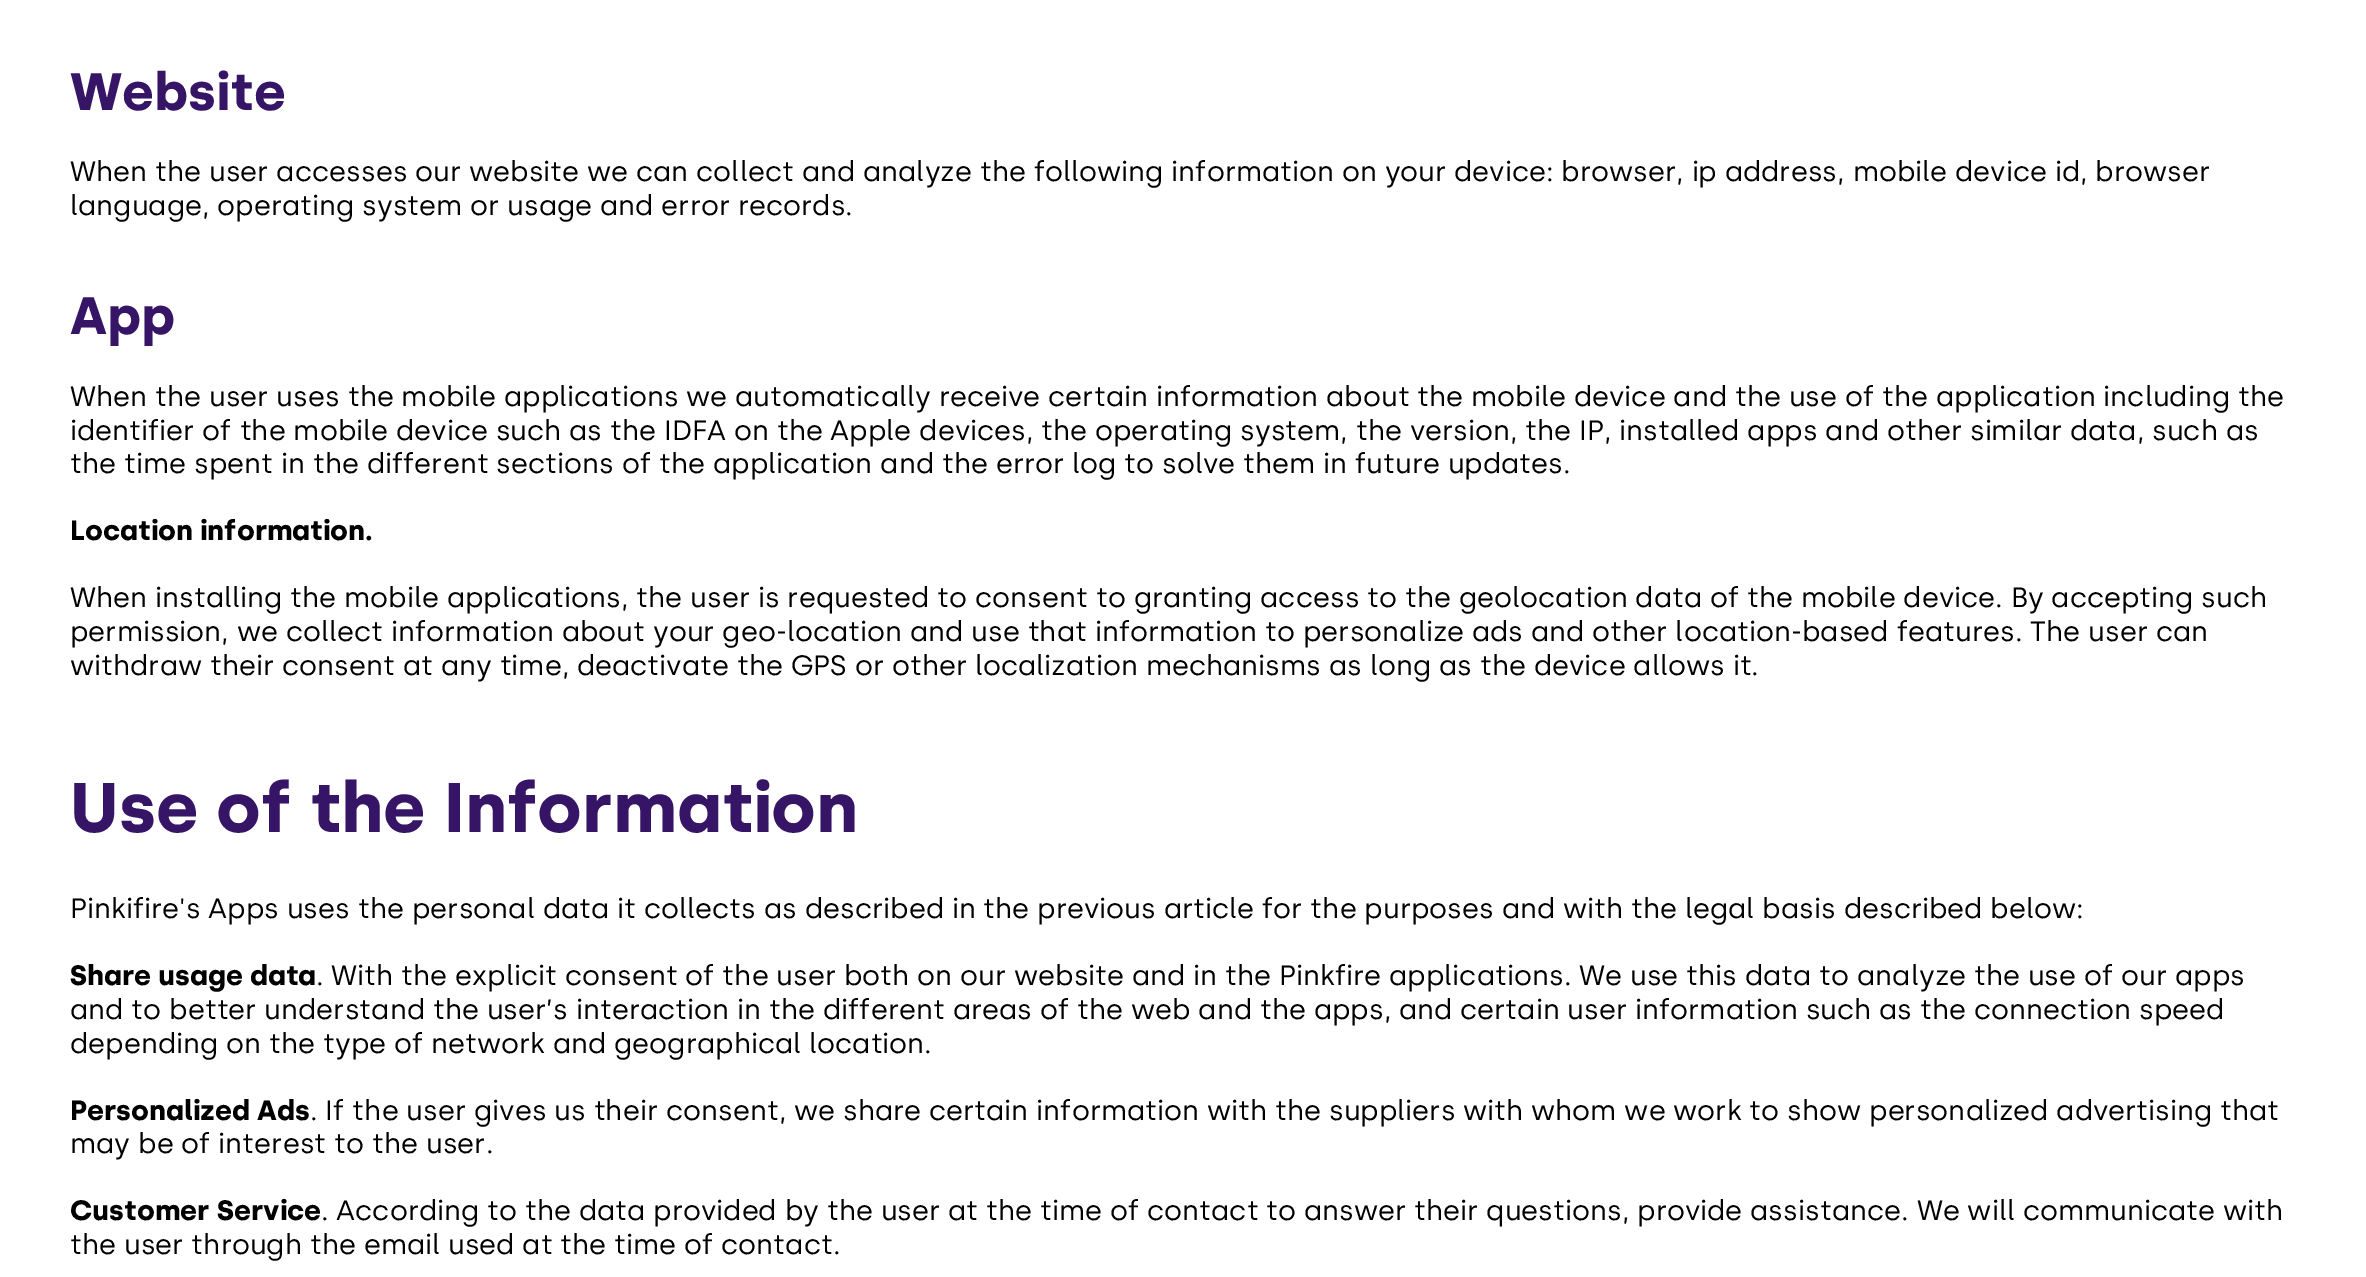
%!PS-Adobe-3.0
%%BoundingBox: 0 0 2366 1277
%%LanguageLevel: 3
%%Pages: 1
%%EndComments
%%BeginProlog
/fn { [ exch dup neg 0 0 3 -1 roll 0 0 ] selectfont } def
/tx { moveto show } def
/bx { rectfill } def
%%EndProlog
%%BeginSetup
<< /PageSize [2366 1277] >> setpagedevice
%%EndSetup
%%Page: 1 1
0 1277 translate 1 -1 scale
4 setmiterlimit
1 setgray
0 0 2366 1277 bx
/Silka-Bold 52.5 fn
0.212 0.078 0.4 setrgbcolor
(Website) 70 110 tx
/Silka-Regular 28 fn
0 setgray
(When the user accesses our website we can collect and analyze the following information on your device: browser, ip address, mobile device id, browser) 70 181 tx
(language, operating system or usage and error records.) 70 215 tx
/Silka-Bold 52.5 fn
0.212 0.078 0.4 setrgbcolor
(App) 70 334 tx
/Silka-Regular 28 fn
0 setgray
(When the user uses the mobile applications we automatically receive certain information about the mobile device and the use of the application including the) 70 406 tx
(identifier of the mobile device such as the IDFA on the Apple devices, the operating system, the version, the IP, installed apps and other similar data, such as) 70 440 tx
(the time spent in the different sections of the application and the error log to solve them in future updates.) 70 473 tx
/Silka-Bold 28 fn
(Location information.) 70 540 tx
/Silka-Regular 28 fn
(When installing the mobile applications, the user is requested to consent to granting access to the geolocation data of the mobile device. By accepting such) 70 607 tx
(permission, we collect information about your geo-location and use that information to personalize ads and other location-based features. The user can) 70 641 tx
(withdraw their consent at any time, deactivate the GPS or other localization mechanisms as long as the device allows it.) 70 675 tx
/Silka-Bold 70 fn
0.212 0.078 0.4 setrgbcolor
(Use of the Information) 70 832 tx
/Silka-Regular 28 fn
0 setgray
(Pinkifire's Apps uses the personal data it collects as described in the previous article for the purposes and with the legal basis described below:) 70 918 tx
/Silka-Bold 28 fn
(Share usage data) 70 985 tx
/Silka-Regular 28 fn
(. With the explicit consent of the user both on our website and in the Pinkfire applications. We use this data to analyze the use of our apps) 316 985 tx
(and to better understand the user’s interaction in the different areas of the web and the apps, and certain user information such as the connection speed) 70 1019 tx
(depending on the type of network and geographical location.) 70 1053 tx
/Silka-Bold 28 fn
(Personalized Ads) 70 1120 tx
/Silka-Regular 28 fn
(. If the user gives us their consent, we share certain information with the suppliers with whom we work to show personalized advertising that) 310 1120 tx
(may be of interest to the user.) 70 1153 tx
/Silka-Bold 28 fn
(Customer Service) 70 1220 tx
/Silka-Regular 28 fn
(. According to the data provided by the user at the time of contact to answer their questions, provide assistance. We will communicate with) 321 1220 tx
(the user through the email used at the time of contact.) 70 1254 tx
showpage
%%EOF
